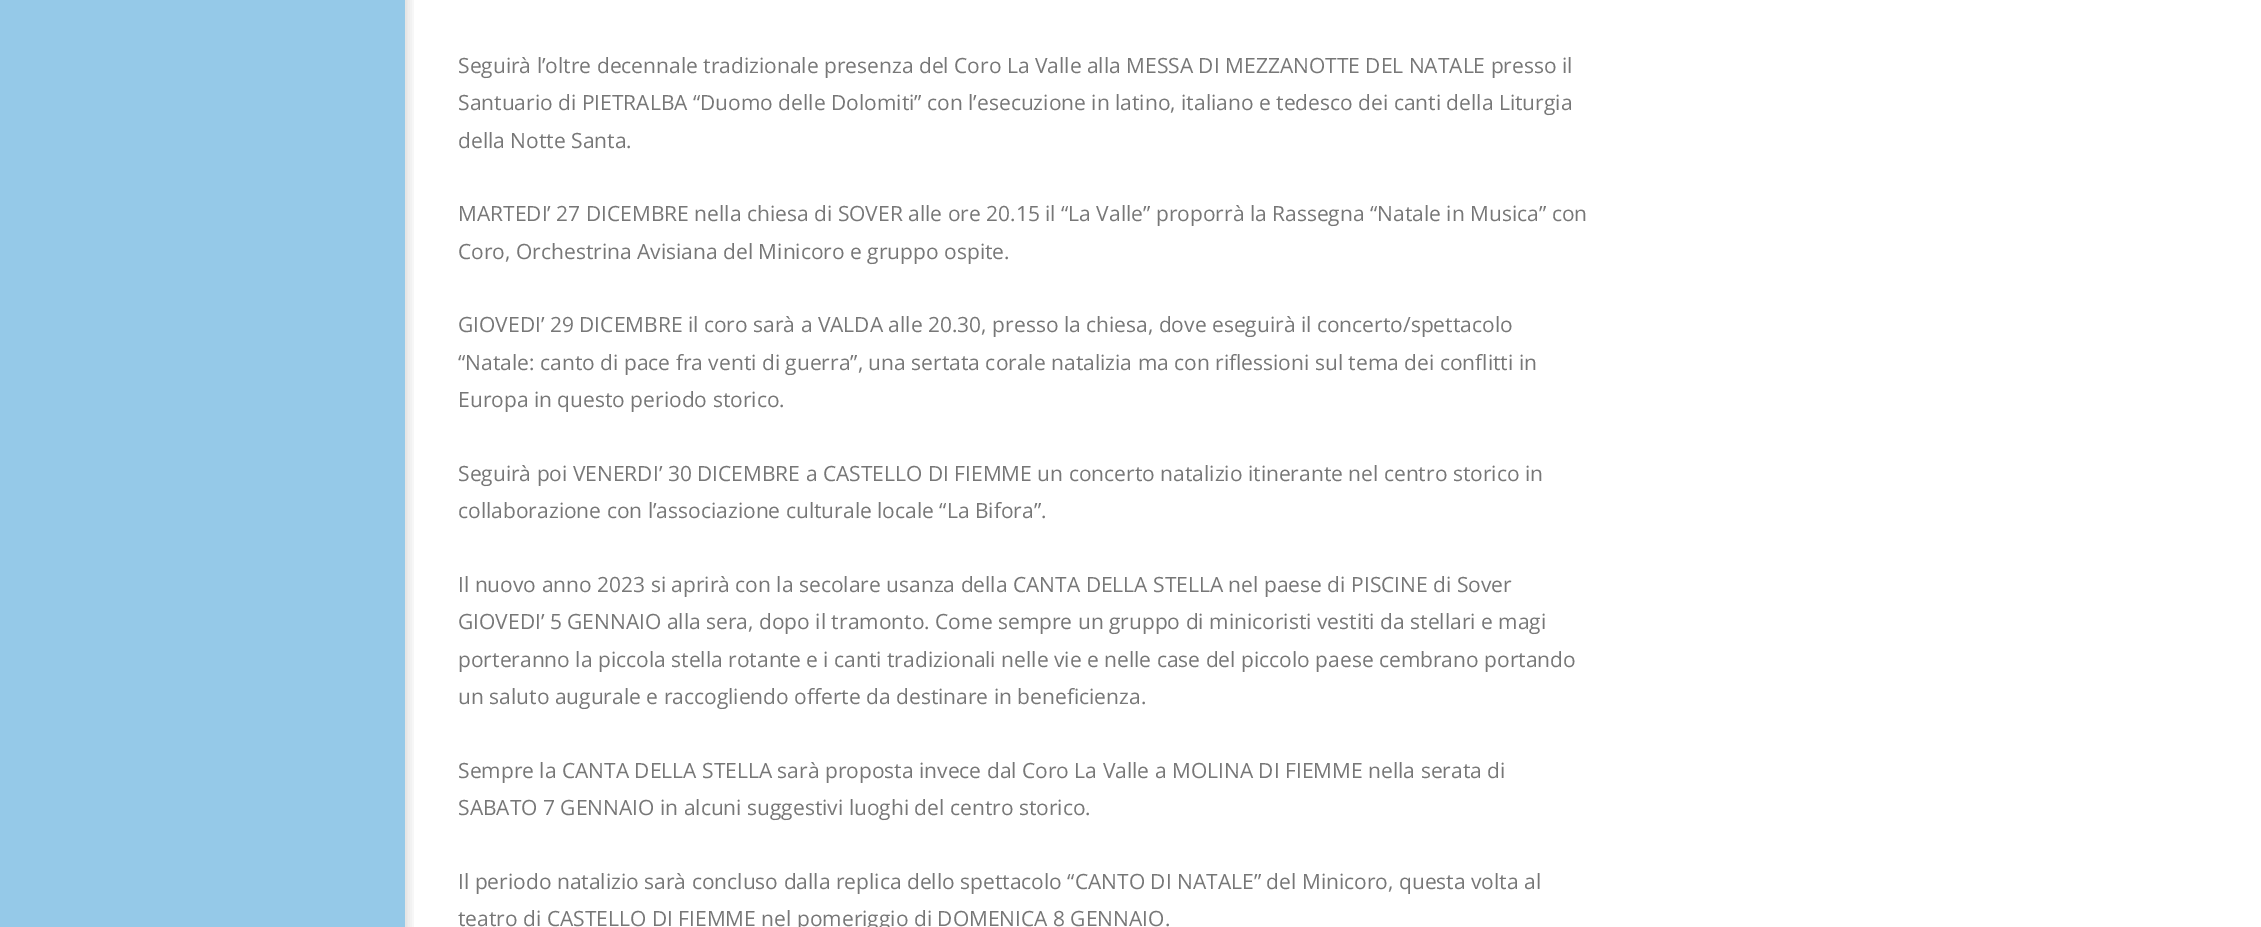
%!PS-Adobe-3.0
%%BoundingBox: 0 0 2261 927
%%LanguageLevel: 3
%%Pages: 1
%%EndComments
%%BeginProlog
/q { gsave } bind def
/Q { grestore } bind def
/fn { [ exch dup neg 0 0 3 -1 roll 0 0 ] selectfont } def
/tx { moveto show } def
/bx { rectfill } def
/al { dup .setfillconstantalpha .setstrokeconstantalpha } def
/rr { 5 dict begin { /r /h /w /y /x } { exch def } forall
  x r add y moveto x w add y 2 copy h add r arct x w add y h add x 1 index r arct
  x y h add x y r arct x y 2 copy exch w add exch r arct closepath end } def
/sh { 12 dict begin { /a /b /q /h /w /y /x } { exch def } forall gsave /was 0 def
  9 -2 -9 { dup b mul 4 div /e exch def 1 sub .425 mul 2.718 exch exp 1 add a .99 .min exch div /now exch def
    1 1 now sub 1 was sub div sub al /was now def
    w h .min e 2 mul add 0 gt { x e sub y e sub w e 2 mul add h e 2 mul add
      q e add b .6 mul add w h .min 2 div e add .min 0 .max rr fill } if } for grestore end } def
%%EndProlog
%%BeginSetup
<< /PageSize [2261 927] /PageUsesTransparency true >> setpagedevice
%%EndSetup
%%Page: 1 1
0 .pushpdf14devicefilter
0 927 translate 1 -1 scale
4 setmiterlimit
0.584 0.788 0.91 setrgbcolor
0 0 2261 927 bx
1 setgray
407 0 1854 927 bx
q
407 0 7 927 rectclip
0 setgray
5 -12 406 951 0 4 0.1 sh
Q
0.898 setgray
405 0 2 927 bx
/OpenSans-Regular 21 fn
0.467 setgray
(Seguirà l’oltre decennale tradizionale presenza del Coro La Valle alla MESSA DI MEZZANOTTE DEL NATALE presso il) 458 73 tx
(Santuario di PIETRALBA “Duomo delle Dolomiti” con l’esecuzione in latino, italiano e tedesco dei canti della Liturgia) 458 110 tx
(della Notte Santa.) 458 148 tx
(MARTEDI’ 27 DICEMBRE nella chiesa di SOVER alle ore 20.15 il “La Valle” proporrà la Rassegna “Natale in Musica” con) 458 221 tx
(Coro, Orchestrina Avisiana del Minicoro e gruppo ospite.) 458 259 tx
(GIOVEDI’ 29 DICEMBRE il coro sarà a VALDA alle 20.30, presso la chiesa, dove eseguirà il concerto/spettacolo) 458 332 tx
(“Natale: canto di pace fra venti di guerra”, una sertata corale natalizia ma con riflessioni sul tema dei conflitti in) 458 370 tx
(Europa in questo periodo storico.) 458 407 tx
(Seguirà poi VENERDI’ 30 DICEMBRE a CASTELLO DI FIEMME un concerto natalizio itinerante nel centro storico in) 458 481 tx
(collaborazione con l’associazione culturale locale “La Bifora”.) 458 518 tx
(Il nuovo anno 2023 si aprirà con la secolare usanza della CANTA DELLA STELLA nel paese di PISCINE di Sover) 458 592 tx
(GIOVEDI’ 5 GENNAIO alla sera, dopo il tramonto. Come sempre un gruppo di minicoristi vestiti da stellari e magi) 458 629 tx
(porteranno la piccola stella rotante e i canti tradizionali nelle vie e nelle case del piccolo paese cembrano portando) 458 667 tx
(un saluto augurale e raccogliendo offerte da destinare in beneficienza.) 458 704 tx
(Sempre la CANTA DELLA STELLA sarà proposta invece dal Coro La Valle a MOLINA DI FIEMME nella serata di) 458 778 tx
(SABATO 7 GENNAIO in alcuni suggestivi luoghi del centro storico.) 458 815 tx
(Il periodo natalizio sarà concluso dalla replica dello spettacolo “CANTO DI NATALE” del Minicoro, questa volta al) 458 889 tx
(teatro di CASTELLO DI FIEMME nel pomeriggio di DOMENICA 8 GENNAIO.) 458 926 tx
.poppdf14devicefilter showpage
%%EOF
